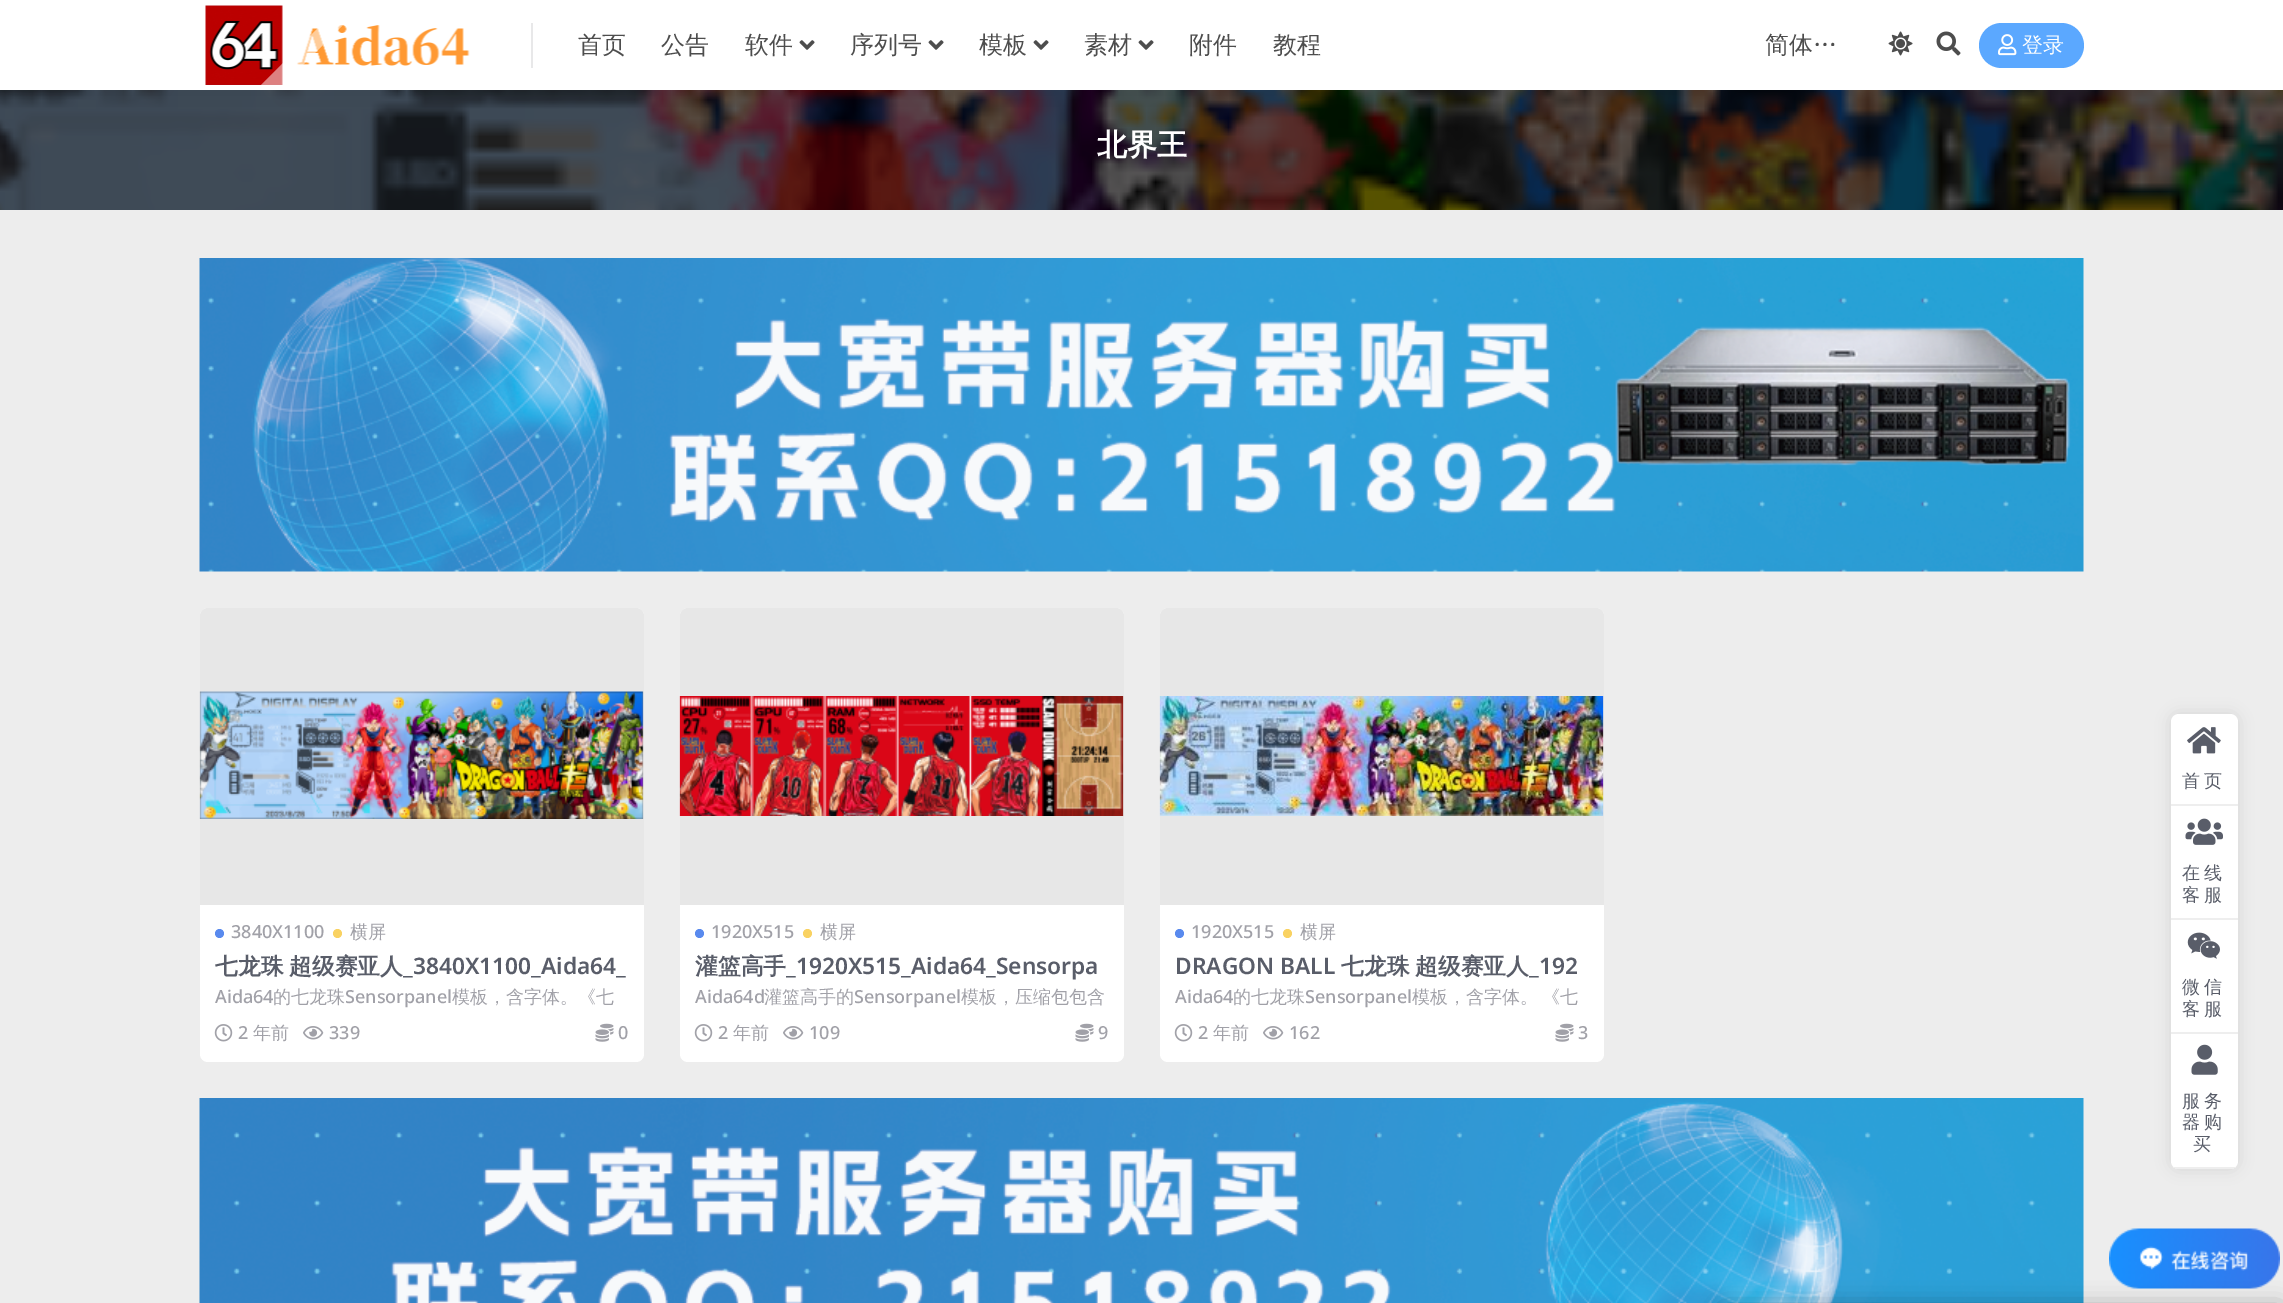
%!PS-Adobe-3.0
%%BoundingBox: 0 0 2283 1303
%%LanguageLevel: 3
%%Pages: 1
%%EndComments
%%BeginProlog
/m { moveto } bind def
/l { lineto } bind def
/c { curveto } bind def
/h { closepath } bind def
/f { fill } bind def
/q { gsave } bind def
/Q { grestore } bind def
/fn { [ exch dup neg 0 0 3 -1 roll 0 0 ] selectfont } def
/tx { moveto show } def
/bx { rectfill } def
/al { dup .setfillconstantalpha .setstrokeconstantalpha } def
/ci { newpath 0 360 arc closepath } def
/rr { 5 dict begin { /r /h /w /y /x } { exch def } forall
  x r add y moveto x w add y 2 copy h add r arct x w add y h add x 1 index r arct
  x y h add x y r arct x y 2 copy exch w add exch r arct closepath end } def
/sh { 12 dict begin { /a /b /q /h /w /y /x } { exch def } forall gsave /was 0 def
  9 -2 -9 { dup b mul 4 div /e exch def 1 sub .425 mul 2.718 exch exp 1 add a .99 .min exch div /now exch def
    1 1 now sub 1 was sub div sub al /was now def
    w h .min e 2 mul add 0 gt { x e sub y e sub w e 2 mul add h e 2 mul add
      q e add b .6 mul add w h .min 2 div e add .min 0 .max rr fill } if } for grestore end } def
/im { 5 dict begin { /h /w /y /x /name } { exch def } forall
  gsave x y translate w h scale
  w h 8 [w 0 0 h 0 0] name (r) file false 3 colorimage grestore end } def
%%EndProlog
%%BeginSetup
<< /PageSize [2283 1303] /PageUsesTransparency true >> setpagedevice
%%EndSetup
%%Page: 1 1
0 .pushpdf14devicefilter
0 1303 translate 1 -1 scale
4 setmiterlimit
0.929 setgray
0 0 2283 1303 bx
(image5.raw) 0 90 2283 120 im
0 setgray
0 0 2283 90 0 22.5 0.07 sh
1 setgray
0 0 2283 90 bx
(image0.raw) 205 5 265 80 im
q
200 0 301 90 rectclip
0.5 al
238 108 m 450 -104 l 461 -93 l 249 119 l h f
Q
0.91 0.91 0.914 setrgbcolor
531 23 2 45 bx
/WenQuanYiZenHei-Medium 24 fn
0.302 setgray
(首页) 578 53 tx
(公告) 661 53 tx
(软件) 745 53 tx
(image1.raw) 799 40 16 10 im
(序列号) 850 53 tx
(image1.raw) 928 40 16 10 im
(模板) 979 53 tx
(image1.raw) 1033 40 16 10 im
(素材) 1084 53 tx
(image1.raw) 1138 40 16 10 im
(附件) 1189 53 tx
(教程) 1273 53 tx
(简体…) 1765 53 tx
(image2.raw) 1888 31 25 25 im
(image3.raw) 1936 31 25 25 im
0.357 0.659 1 setrgbcolor
1979 23 105 45 22.5 rr f
(image4.raw) 1998 34 19 22 im
/WenQuanYiZenHei-Medium 21 fn
1 setgray
(登录) 2022 52 tx
/WenQuanYiZenHei-Bold 30 fn
(北界王) 1097 155 tx
(image6.raw) 199 258 1885 314 im
200 608 444 454 8 rr f
0.906 setgray
208 608 m 636 608 l 640.5 608 644 611.5 644 616 c 644 905 l 200 905 l 200 616 l 200 611.5 203.5 608 208 608 c h f
(image7.raw) 199 691 445 128 im
0.349 0.541 0.933 setrgbcolor
219.5 933.5 4.5 ci f
/NotoSans-Medium 18 fn
0.631 0.631 0.659 setrgbcolor
(3840X1100) 231 938 tx
0.976 0.824 0.384 setrgbcolor
337.5 933.5 4.5 ci f
/WenQuanYiZenHei-Medium 18 fn
0.631 0.631 0.659 setrgbcolor
(横屏) 350 938 tx
/WenQuanYiZenHei-Bold 22.75 fn
0.349 0.365 0.412 setrgbcolor
215 974 m -1 0 32 (七龙珠 超级赛亚人) widthshow
/NotoSans-SemiBold 22.75 fn
(_3840X1100_Aida64_) 403 974 tx
/NotoSans-Medium 18 fn
0.631 0.631 0.659 setrgbcolor
(Aida64) 215 1003 tx
/WenQuanYiZenHei-Medium 18 fn
(的七龙珠) 273 1003 tx
/NotoSans-Medium 18 fn
(Sensorpanel) 345 1003 tx
/WenQuanYiZenHei-Medium 18 fn
(模板，含字体。《七) 452 1003 tx
(image8.raw) 214 1024 19 18 im
/NotoSans-Medium 18 fn
(2) 238 1039 tx
/WenQuanYiZenHei-Medium 18 fn
(年前) 253 1039 tx
(image9.raw) 303 1026 21 14 im
/NotoSans-Medium 18 fn
(339) 329 1039 tx
(image10.raw) 595 1023 19 19 im
(0) 618 1039 tx
1 setgray
680 608 444 454 8 rr f
0.906 setgray
688 608 m 1116 608 l 1120.5 608 1124 611.5 1124 616 c 1124 905 l 680 905 l 680 616 l 680 611.5 683.5 608 688 608 c h f
(image11.raw) 679 696 445 120 im
0.349 0.541 0.933 setrgbcolor
699.5 933.5 4.5 ci f
0.631 0.631 0.659 setrgbcolor
(1920X515) 711 938 tx
0.976 0.824 0.384 setrgbcolor
807.5 933.5 4.5 ci f
/WenQuanYiZenHei-Medium 18 fn
0.631 0.631 0.659 setrgbcolor
(横屏) 820 938 tx
/WenQuanYiZenHei-Bold 22.75 fn
0.349 0.365 0.412 setrgbcolor
(灌篮高手) 695 974 tx
/NotoSans-SemiBold 22.75 fn
(_1920X515_Aida64_Sensorpa) 786 974 tx
/NotoSans-Medium 18 fn
0.631 0.631 0.659 setrgbcolor
(Aida64d) 695 1003 tx
/WenQuanYiZenHei-Medium 18 fn
(灌篮高手的) 764 1003 tx
/NotoSans-Medium 18 fn
(Sensorpanel) 854 1003 tx
/WenQuanYiZenHei-Medium 18 fn
(模板，压缩包包含) 961 1003 tx
(image8.raw) 694 1024 19 18 im
/NotoSans-Medium 18 fn
(2) 718 1039 tx
/WenQuanYiZenHei-Medium 18 fn
(年前) 733 1039 tx
(image9.raw) 783 1026 21 14 im
/NotoSans-Medium 18 fn
(109) 809 1039 tx
(image10.raw) 1075 1023 19 19 im
(9) 1098 1039 tx
1 setgray
1160 608 444 454 8 rr f
0.906 setgray
1168 608 m 1596 608 l 1600.5 608 1604 611.5 1604 616 c 1604 905 l 1160 905 l 1160 616 l 1160 611.5 1163.5 608 1168 608 c h f
(image12.raw) 1159 696 445 120 im
0.349 0.541 0.933 setrgbcolor
1179.5 933.5 4.5 ci f
0.631 0.631 0.659 setrgbcolor
(1920X515) 1191 938 tx
0.976 0.824 0.384 setrgbcolor
1287.5 933.5 4.5 ci f
/WenQuanYiZenHei-Medium 18 fn
0.631 0.631 0.659 setrgbcolor
(横屏) 1300 938 tx
/NotoSans-SemiBold 22.75 fn
0.349 0.365 0.412 setrgbcolor
(DRAGON BALL) 1175 974 tx
/WenQuanYiZenHei-Bold 22.75 fn
(七龙珠) 1341 974 tx
(超级赛亚人) 1415 974 tx
/NotoSans-SemiBold 22.75 fn
(_192) 1529 974 tx
/NotoSans-Medium 18 fn
0.631 0.631 0.659 setrgbcolor
(Aida64) 1175 1003 tx
/WenQuanYiZenHei-Medium 18 fn
(的七龙珠) 1233 1003 tx
/NotoSans-Medium 18 fn
(Sensorpanel) 1305 1003 tx
/WenQuanYiZenHei-Medium 18 fn
1412 1003 m -1 0 32 (模板，含字体。 《七) widthshow
(image8.raw) 1174 1024 19 18 im
/NotoSans-Medium 18 fn
(2) 1198 1039 tx
/WenQuanYiZenHei-Medium 18 fn
(年前) 1213 1039 tx
(image9.raw) 1263 1026 21 14 im
/NotoSans-Medium 18 fn
(162) 1289 1039 tx
(image10.raw) 1555 1023 19 19 im
(3) 1578 1039 tx
(image13.raw) 199 1098 1885 205 im
0 setgray
2171 714 67 455 8 7.5 0.1 sh
1 setgray
2179 714 m 2230 714 l 2234.5 714 2238 717.5 2238 722 c 2238 806 l 2171 806 l 2171 722 l 2171 717.5 2174.5 714 2179 714 c h f
0.933 setgray
2171 804 67 2 bx
(image14.raw) 2187 727 34 27 im
/WenQuanYiZenHei-Medium 18 fn
0.349 0.365 0.412 setrgbcolor
2182 787 m 4 0 (首页) ashow
1 setgray
2171 806 67 112 bx
0.933 setgray
2171 918 67 2 bx
(image15.raw) 2185 818 38 27 im
0.349 0.365 0.412 setrgbcolor
2182 879 m 4 0 (在线) ashow
2182 901 m 4 0 (客服) ashow
1 setgray
2171 920 67 112 bx
0.933 setgray
2171 1032 67 2 bx
(image16.raw) 2187 932 33 27 im
0.349 0.365 0.412 setrgbcolor
2182 993 m 4 0 (微信) ashow
2182 1015 m 4 0 (客服) ashow
1 setgray
2171 1034 m 2238 1034 l 2238 1161 l 2238 1165.5 2234.5 1169 2230 1169 c 2179 1169 l 2174.5 1169 2171 1165.5 2171 1161 c h f
q
2171 714 67 455 8 rr clip newpath
0.933 setgray
2171 1167 67 2 bx
Q
(image17.raw) 2191 1044 27 31 im
0.349 0.365 0.412 setrgbcolor
2182 1107 m 4 0 (服务) ashow
2182 1128 m 4 0 (器购) ashow
2193 1150 m 4 0 (买) ashow
(image18.raw) 2109 1228 171 61 im
0 setgray
1719 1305 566 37 6 11 0.3 sh
.poppdf14devicefilter showpage
%%EOF
